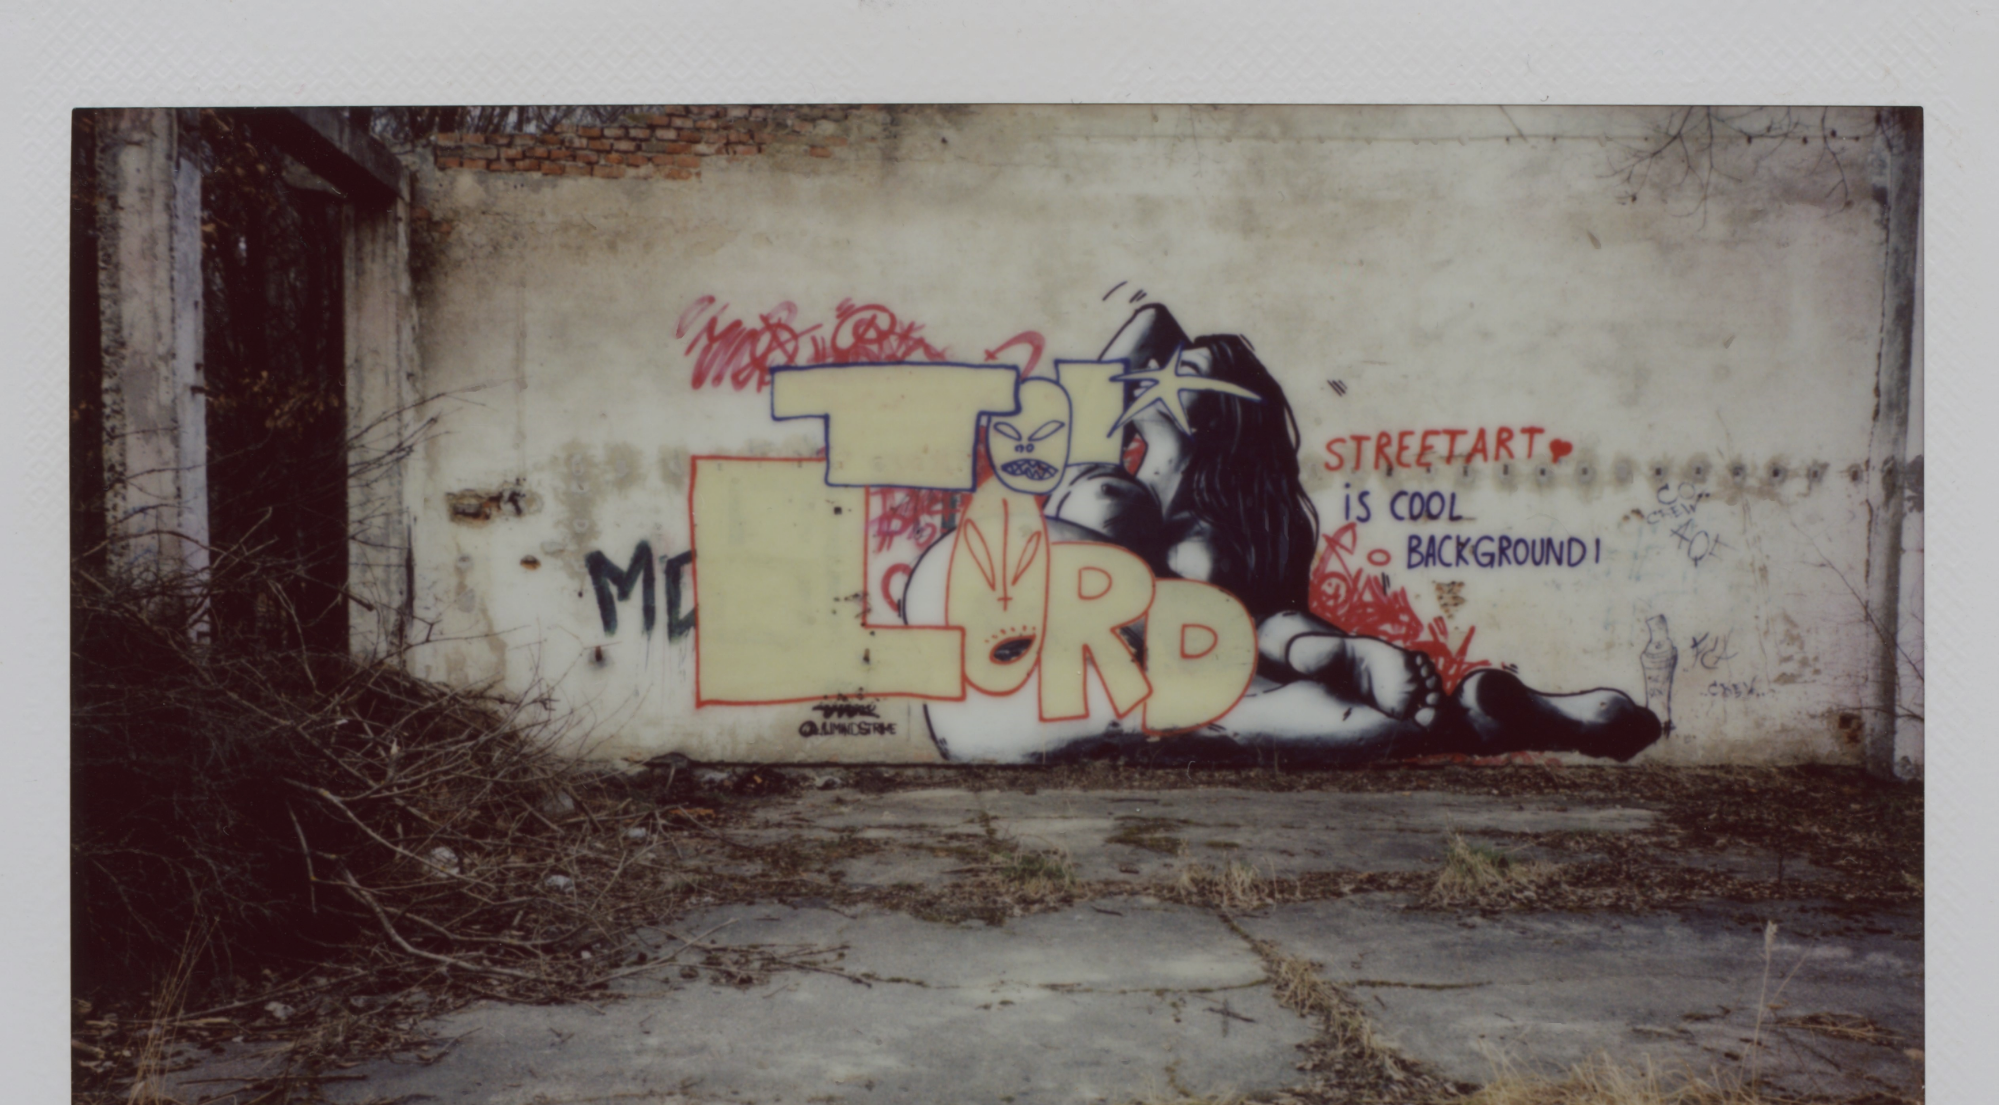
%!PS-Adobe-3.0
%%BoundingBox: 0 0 1999 1105
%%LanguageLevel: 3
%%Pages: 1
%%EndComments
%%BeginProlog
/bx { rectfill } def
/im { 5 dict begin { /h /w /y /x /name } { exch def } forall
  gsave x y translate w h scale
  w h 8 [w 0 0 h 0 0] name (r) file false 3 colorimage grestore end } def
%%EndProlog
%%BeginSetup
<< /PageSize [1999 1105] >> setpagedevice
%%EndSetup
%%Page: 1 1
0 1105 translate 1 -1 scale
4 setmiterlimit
1 setgray
0 0 1999 1105 bx
(image0.raw) 0 0 1999 1105 im
showpage
%%EOF
